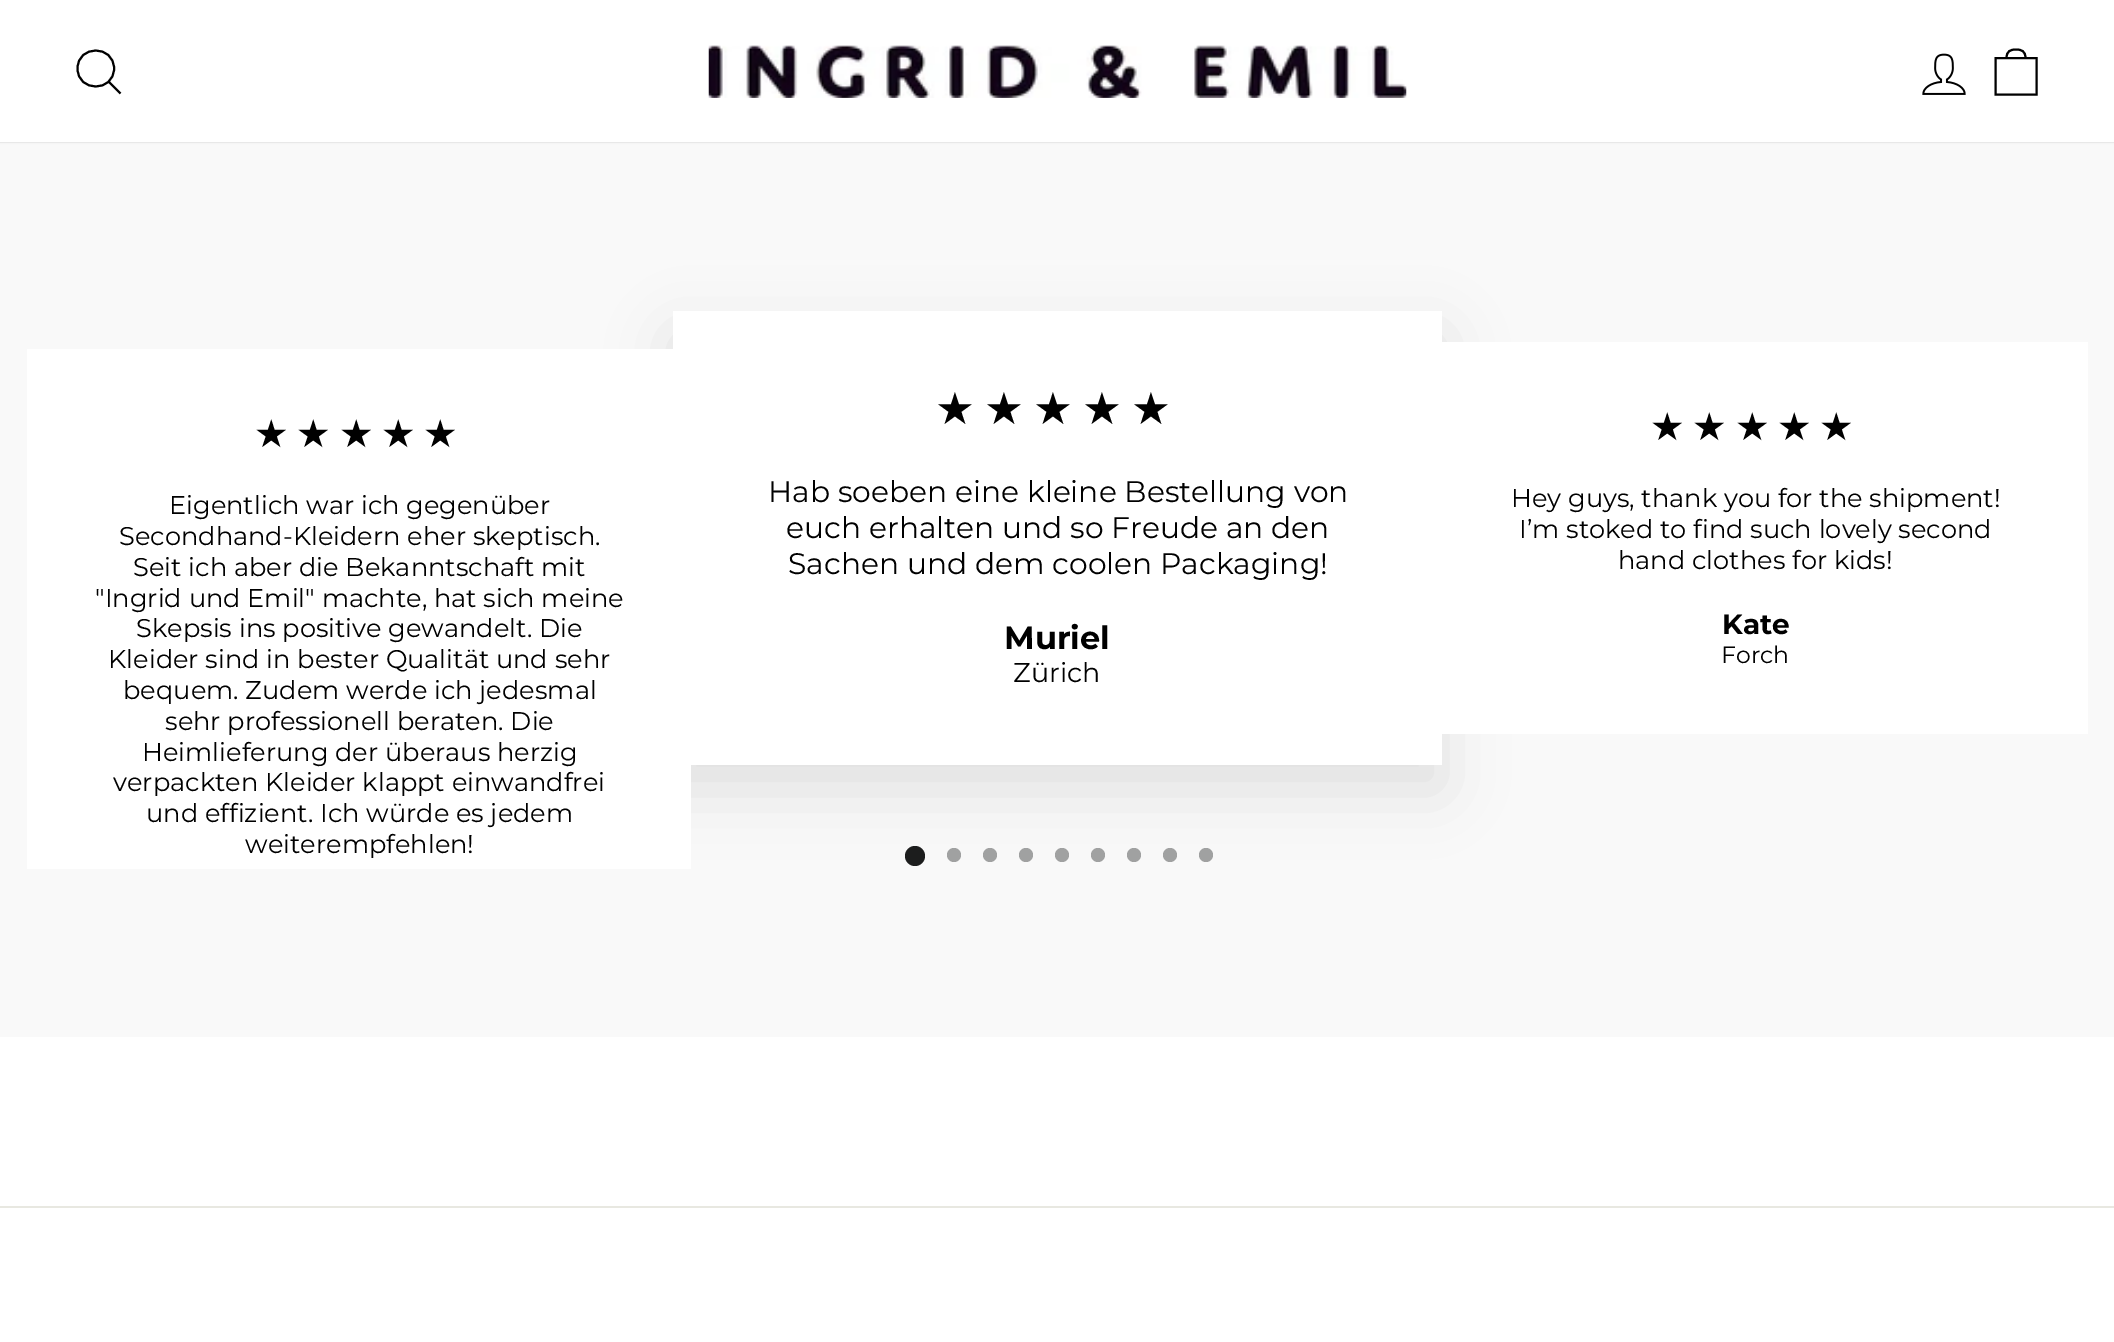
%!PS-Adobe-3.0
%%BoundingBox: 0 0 2114 1342
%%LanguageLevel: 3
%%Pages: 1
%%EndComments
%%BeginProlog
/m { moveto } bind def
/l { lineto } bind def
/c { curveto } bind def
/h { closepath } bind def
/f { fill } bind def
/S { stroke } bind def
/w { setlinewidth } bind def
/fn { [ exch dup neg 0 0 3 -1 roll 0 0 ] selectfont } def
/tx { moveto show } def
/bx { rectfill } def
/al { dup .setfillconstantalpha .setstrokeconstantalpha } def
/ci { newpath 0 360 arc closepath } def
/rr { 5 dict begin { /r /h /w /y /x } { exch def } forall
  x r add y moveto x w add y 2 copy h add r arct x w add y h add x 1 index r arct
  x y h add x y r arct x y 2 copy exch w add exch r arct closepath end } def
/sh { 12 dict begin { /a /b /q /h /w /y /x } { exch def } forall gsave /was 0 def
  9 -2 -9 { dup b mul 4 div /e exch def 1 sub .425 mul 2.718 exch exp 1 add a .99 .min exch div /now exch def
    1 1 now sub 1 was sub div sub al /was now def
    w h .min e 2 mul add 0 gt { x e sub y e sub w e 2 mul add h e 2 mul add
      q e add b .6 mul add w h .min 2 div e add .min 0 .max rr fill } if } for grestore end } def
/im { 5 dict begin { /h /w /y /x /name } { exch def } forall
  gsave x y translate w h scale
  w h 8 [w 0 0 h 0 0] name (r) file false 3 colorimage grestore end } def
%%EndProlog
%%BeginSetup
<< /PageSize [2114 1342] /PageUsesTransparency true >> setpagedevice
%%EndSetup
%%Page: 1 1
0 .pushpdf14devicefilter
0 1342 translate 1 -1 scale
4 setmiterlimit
1 setgray
0 0 2114 1342 bx
0.976 setgray
0 142 2114 895 bx
0 setgray
0 0 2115 142 0 1 0.2 sh
1 setgray
0 0 2114 142 bx
0 setgray
2 w
114 68.5 m 114 92.5 77.5 92.5 77.5 68.5 c 77.5 44.5 114 44.5 114 68.5 c h 120.5 93.5 m 109 82 l S
(image0.raw) 708 45 699 53 im
(image1.raw) 1922 53 44 42 im
1995.5 58 m 2036.5 58 l 2036.5 94.5 l 1995.5 94.5 l h 2006.5 58 m 2006.5 51 2010.5 49.5 2016 49.5 c 2021.5 49.5 2025.5 51 2025.5 58 c S
673 335 769 455 0 31 0.1 sh
1 setgray
673 311 769 454 bx
27 349 664 520 bx
/DejaVuSans-Regular 38.5 fn
0 setgray
254 447 m 7.75 0 (★★★★★) ashow
/Montserrat-Thin 25.65 fn
(Eigentlich war ich gegenüber) 169 514 tx
(Secondhand-Kleidern eher skeptisch.) 119 545 tx
(Seit ich aber die Bekanntschaft mit) 133 576 tx
("Ingrid und Emil" machte, hat sich meine) 95 607 tx
(Skepsis ins positive gewandelt. Die) 136 637 tx
(Kleider sind in bester Qualität und sehr) 108 668 tx
(bequem. Zudem werde ich jedesmal) 123 699 tx
(sehr professionell beraten. Die) 165 730 tx
(Heimlieferung der überaus herzig) 142 761 tx
(verpackten Kleider klappt einwandfrei) 113 791 tx
(und effizient. Ich würde es jedem) 146 822 tx
(weiterempfehlen!) 245 853 tx
/DejaVuSans-Regular 44.5 fn
935 424 m 9 0 (★★★★★) ashow
/Montserrat-Thin 29.75 fn
(Hab soeben eine kleine Bestellung von) 768 502 tx
(euch erhalten und so Freude an den) 786 538 tx
(Sachen und dem coolen Packaging!) 788 574 tx
/Montserrat-Bold 32 fn
(Muriel) 1004 649 tx
/Montserrat-Thin 27 fn
(Zürich) 1013 682 tx
1 setgray
1442 342 646 392 bx
/DejaVuSans-Regular 38.5 fn
0 setgray
1650 440 m 7.75 0 (★★★★★) ashow
/Montserrat-Thin 25.65 fn
(Hey guys, thank you for the shipment!) 1511 507 tx
(I’m stoked to find such lovely second) 1519 538 tx
(hand clothes for kids!) 1618 569 tx
/Montserrat-Bold 28 fn
(Kate) 1722 634 tx
/Montserrat-Thin 23.5 fn
(Forch) 1721 663 tx
0.11 0.114 0.114 setrgbcolor
915 856 10 ci f
0.627 0.631 0.631 setrgbcolor
954 855 7 ci f
990 855 7 ci f
1026 855 7 ci f
1062 855 7 ci f
1098 855 7 ci f
1134 855 7 ci f
1170 855 7 ci f
1206 855 7 ci f
0.91 0.91 0.882 setrgbcolor
0 1206 2114 2 bx
.poppdf14devicefilter showpage
%%EOF
